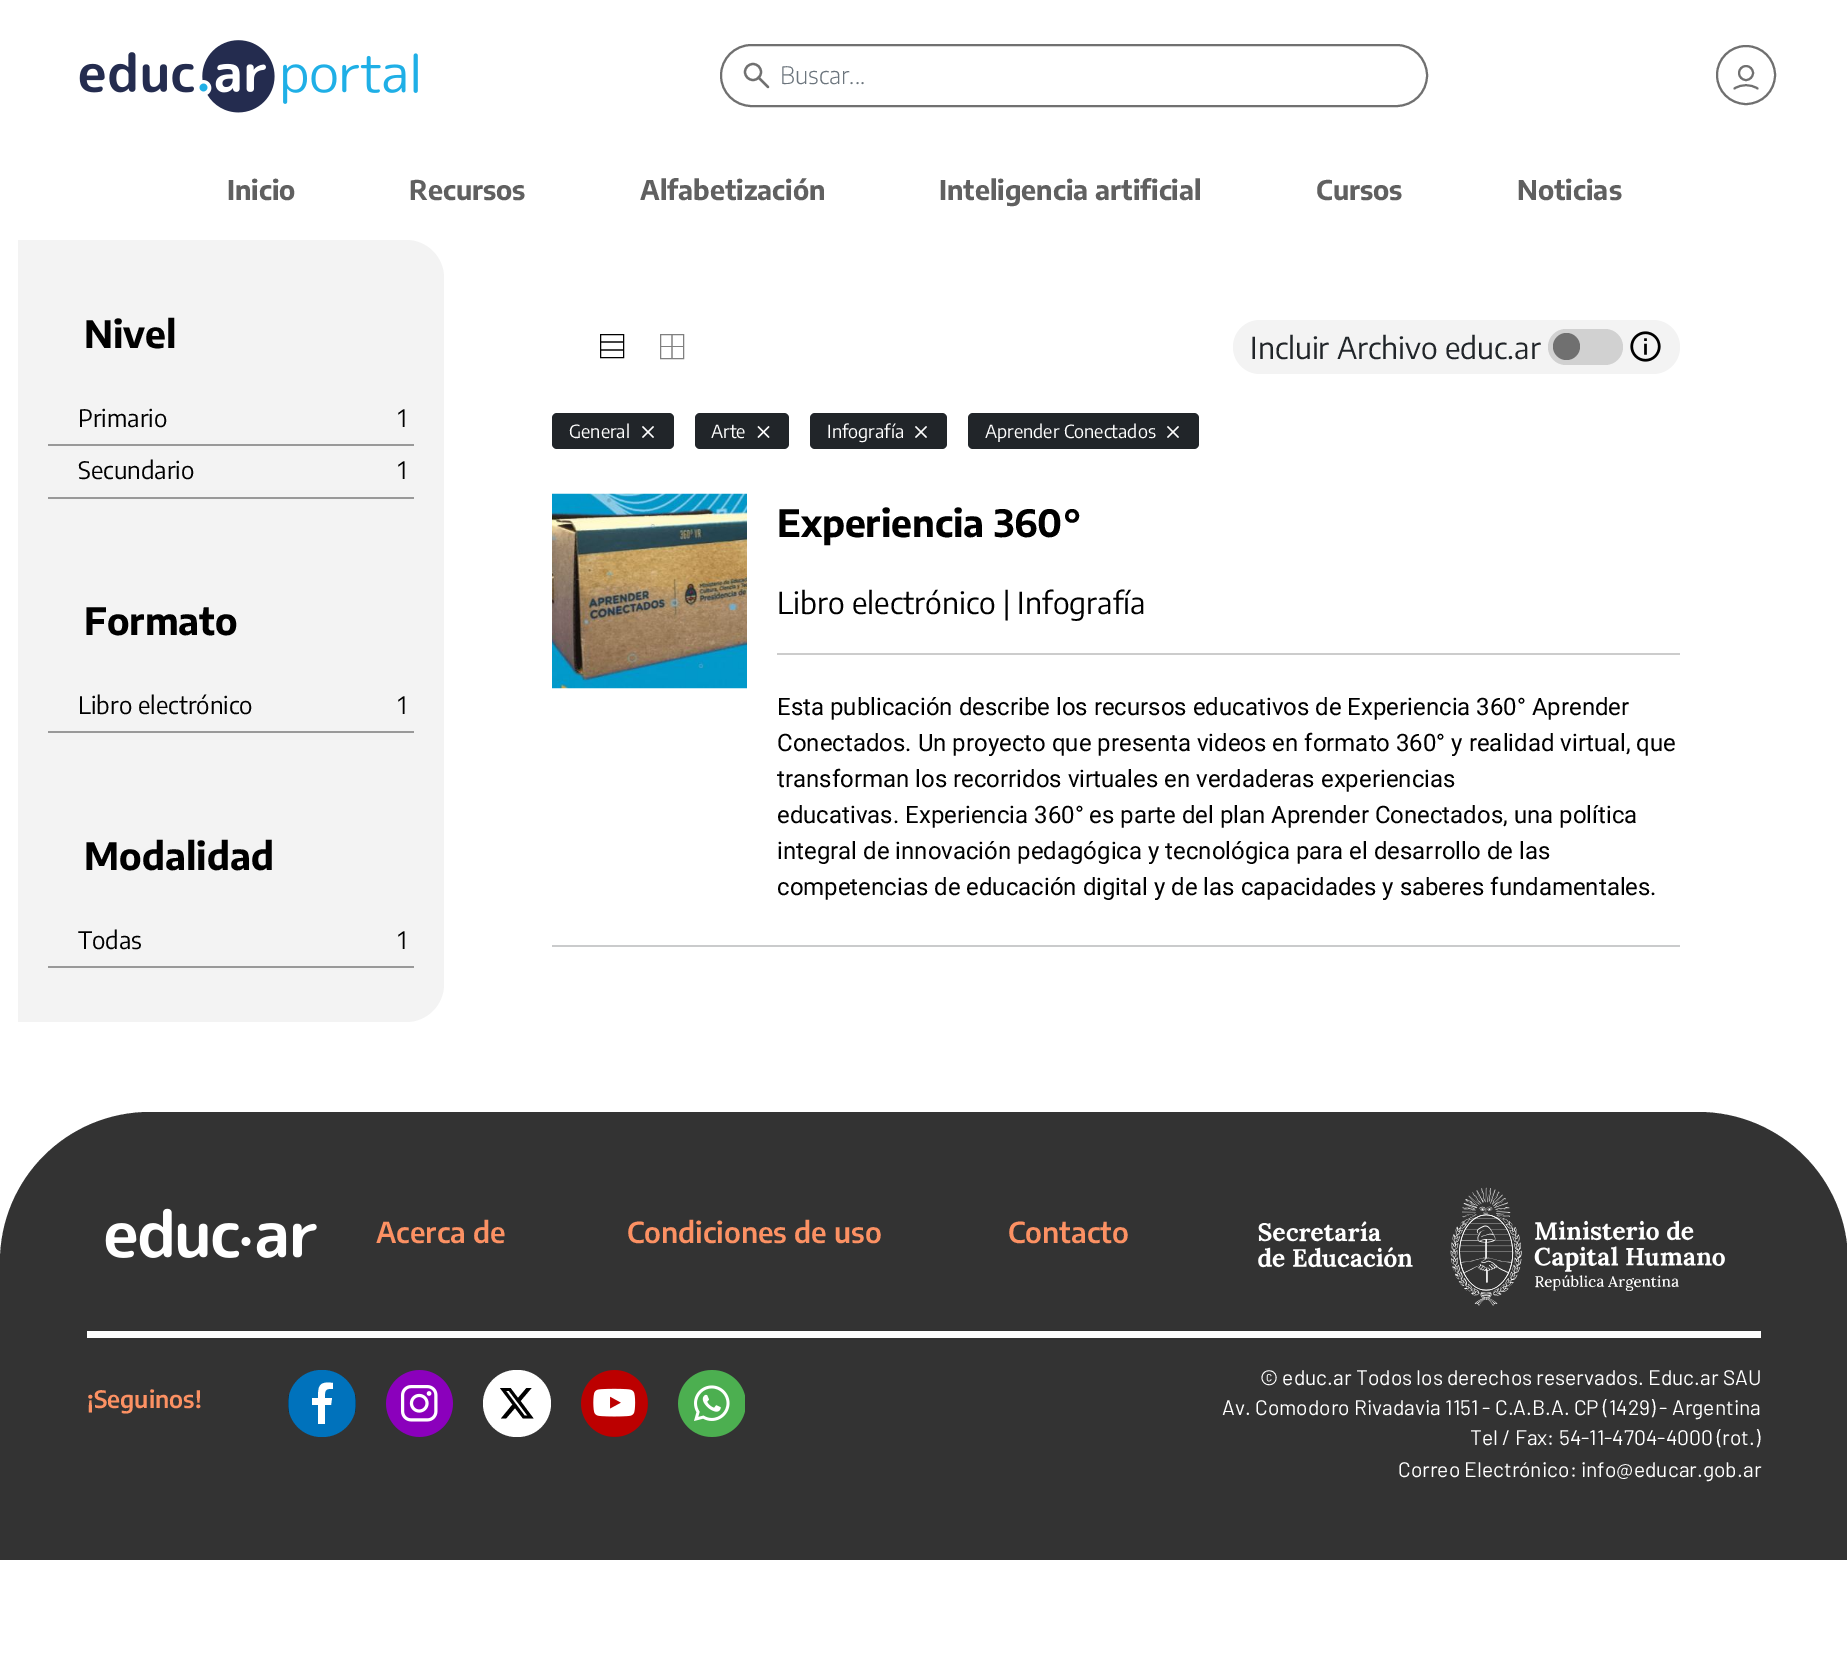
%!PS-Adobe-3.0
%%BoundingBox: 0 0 1847 1669
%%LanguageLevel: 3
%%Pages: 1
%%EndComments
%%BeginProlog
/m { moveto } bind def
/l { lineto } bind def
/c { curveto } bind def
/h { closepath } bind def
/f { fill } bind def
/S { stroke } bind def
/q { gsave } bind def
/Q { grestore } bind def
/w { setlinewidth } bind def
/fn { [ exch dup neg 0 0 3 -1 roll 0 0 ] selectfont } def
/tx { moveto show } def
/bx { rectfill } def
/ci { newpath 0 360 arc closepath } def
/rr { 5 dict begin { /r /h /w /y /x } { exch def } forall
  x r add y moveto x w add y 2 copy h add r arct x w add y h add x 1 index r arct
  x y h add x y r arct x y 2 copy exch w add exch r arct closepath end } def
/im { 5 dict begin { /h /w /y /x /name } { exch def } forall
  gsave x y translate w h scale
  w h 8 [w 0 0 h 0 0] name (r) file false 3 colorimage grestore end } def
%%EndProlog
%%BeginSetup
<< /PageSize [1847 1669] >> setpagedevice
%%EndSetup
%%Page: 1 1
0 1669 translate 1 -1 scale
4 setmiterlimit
1 setgray
0 0 1847 1669 bx
(image0.raw) 79 40 339 73 im
0.439 setgray
2 w
721 45 706 61 30.5 rr S
2.2 w
753 72 8 ci S
1 setlinecap
1 setlinejoin
768 87 m 758.5 77.5 l S
/EncodeSansCondensed-Light 24 fn
0.424 0.459 0.49 setrgbcolor
(Buscar...) 780 84 tx
0.439 setgray
2 w
0 setlinecap
0 setlinejoin
1746 75 29 ci S
1746 73 7 ci S
1 setlinecap
1 setlinejoin
1734.5 88.5 m 1741.5 84 1750.5 84 1757.5 88.5 c S
/EncodeSansCondensed-Bold 27 fn
0.376 setgray
(Inicio) 227 200 tx
(Recursos) 409 200 tx
(Alfabetización) 640 200 tx
(Inteligencia artificial) 939 200 tx
(Cursos) 1316 200 tx
(Noticias) 1517 200 tx
0.953 setgray
18 240 m 406 240 l 427 240 444 257 444 278 c 444 984 l 444 1005 427 1022 406 1022 c 18 1022 l h f
/EncodeSansCondensed-Bold 37.5 fn
0 setgray
(Nivel) 84 348 tx
0.6 setgray
48 444 366 2 bx
/EncodeSansCondensed-Regular 24 fn
0 setgray
(Primario) 78 427 tx
(1) 398 427 tx
0.6 setgray
48 497 366 2 bx
0 setgray
(Secundario) 78 479 tx
(1) 398 479 tx
/EncodeSansCondensed-Bold 37.5 fn
(Formato) 84 635 tx
0.6 setgray
48 731 366 2 bx
/EncodeSansCondensed-Regular 24 fn
0 setgray
(Libro electrónico) 78 714 tx
(1) 398 714 tx
/EncodeSansCondensed-Bold 37.5 fn
(Modalidad) 84 870 tx
0.6 setgray
48 966 366 2 bx
/EncodeSansCondensed-Regular 24 fn
0 setgray
(Todas) 78 949 tx
(1) 398 949 tx
1 w
0 setlinecap
0 setlinejoin
600.5 334.5 23 23 rectstroke
1.2 w
600.5 342 m 623.5 342 l 600.5 350 m 623.5 350 l S
0.502 setgray
1 w
660.5 334.5 23 24 rectstroke
661 346 23 1 bx
1.2 w
672 358 m 672 335 l S
0.953 setgray
1233 320 447 54 27 rr f
/EncodeSansCondensed-Regular 30 fn
0.129 0.145 0.161 setrgbcolor
(Incluir Archivo educ.ar) 1250 359 tx
0.82 setgray
1548 329 75 36 18 rr f
0.439 setgray
1566.5 346.5 13.5 ci f
(image1.raw) 1630 331 31 31 im
0.129 0.145 0.161 setrgbcolor
552 413 122 36 5 rr f
/EncodeSansCondensed-Regular 18 fn
1 setgray
(General) 569 438 tx
(image2.raw) 642 426 12 12 im
0.129 0.145 0.161 setrgbcolor
695 413 94 36 5 rr f
1 setgray
(Arte) 711 438 tx
(image3.raw) 757 426 13 12 im
0.129 0.145 0.161 setrgbcolor
810 413 137 36 5 rr f
1 setgray
(Infografía) 827 438 tx
(image2.raw) 915 426 12 12 im
0.129 0.145 0.161 setrgbcolor
968 413 231 36 5 rr f
1 setgray
(Aprender Conectados) 985 438 tx
(image2.raw) 1167 426 12 12 im
0.792 0.796 0.8 setrgbcolor
552 945 1128 2 bx
(image4.raw) 552 493 195 196 im
/EncodeSansCondensed-Bold 37.5 fn
0 setgray
(Experiencia 360°) 777 537 tx
0.8 setgray
777 653 903 2 bx
/EncodeSansCondensed-Regular 30 fn
0 setgray
(Libro electrónico | Infografía) 777 614 tx
/Roboto-Regular 24 fn
(Esta publicación describe los recursos educativos de Experiencia 360° Aprender) 777 715 tx
(Conectados. Un proyecto que presenta videos en formato 360° y realidad virtual, que) 777 751 tx
(transforman los recorridos virtuales en verdaderas experiencias) 777 787 tx
(educativas. Experiencia 360° es parte del plan Aprender Conectados, una política) 777 823 tx
(integral de innovación pedagógica y tecnológica para el desarrollo de las) 777 859 tx
(competencias de educación digital y de las capacidades y saberes fundamentales.) 777 895 tx
0.2 setgray
150 1112 m 1698 1112 l 1781 1112 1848 1179 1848 1262 c 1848 1560 l 0 1560 l 0 1262 l 0 1179 67 1112 150 1112 c h f
(image5.raw) 105 1208 212 50 im
/EncodeSansCondensed-SemiBold 28.75 fn
0.988 0.569 0.388 setrgbcolor
(Acerca de) 376 1243 tx
(Condiciones de uso) 627 1243 tx
(Contacto) 1008 1243 tx
(image6.raw) 1258 1187 467 119 im
1 setgray
87 1331 1674 7 bx
/EncodeSansCondensed-SemiBold 24 fn
0.988 0.569 0.388 setrgbcolor
(¡Seguinos!) 87 1408 tx
0 0.447 0.737 setrgbcolor
288 1370 68 67 33.5 rr f
q
288 1370 68 67 33.5 rr clip newpath
0 setgray
0.1 w
288 1369.5 m 355.5 1369.5 l 355.5 1437 l 288 1437 l h S
Q
1 setgray
329 1389 m 333 1389 l 333 1383 l 319 1381 318 1386 318 1398 c 312 1398 l 312 1405 l 318 1405 l 318 1424 l 325 1424 l 325 1405 l 331 1405 l 332 1398 l 325 1398 l 325 1395 324 1389 329 1389 c h f
(image7.raw) 386 1370 67 67 im
483 1370 68 67 33.5 rr f
0 setgray
526.5 1388 m 531.5 1388 l 520.5 1401 l 533.5 1418.5 l 523 1418.5 l 515 1408 l 506 1418.5 l 501 1418.5 l 512.5 1404.5 l 500 1388 l 510.5 1388 l 518 1398 l h 524.5 1415.5 m 527.5 1415.5 l 509 1391 l 506 1391 l h f
(image8.raw) 581 1370 67 67 im
(image9.raw) 678 1370 67 67 im
/Barlow-Regular 21 fn
1 setgray
(© educ.ar Todos los derechos reservados. Educ.ar SAU) 1260 1385 tx
(Av. Comodoro Rivadavia 1151 - C.A.B.A. CP \(1429\) - Argentina) 1222 1415 tx
(Tel / Fax: 54-11-4704-4000 \(rot.\)) 1470 1445 tx
(Correo Electrónico: info@educar.gob.ar) 1398 1477 tx
showpage
%%EOF
